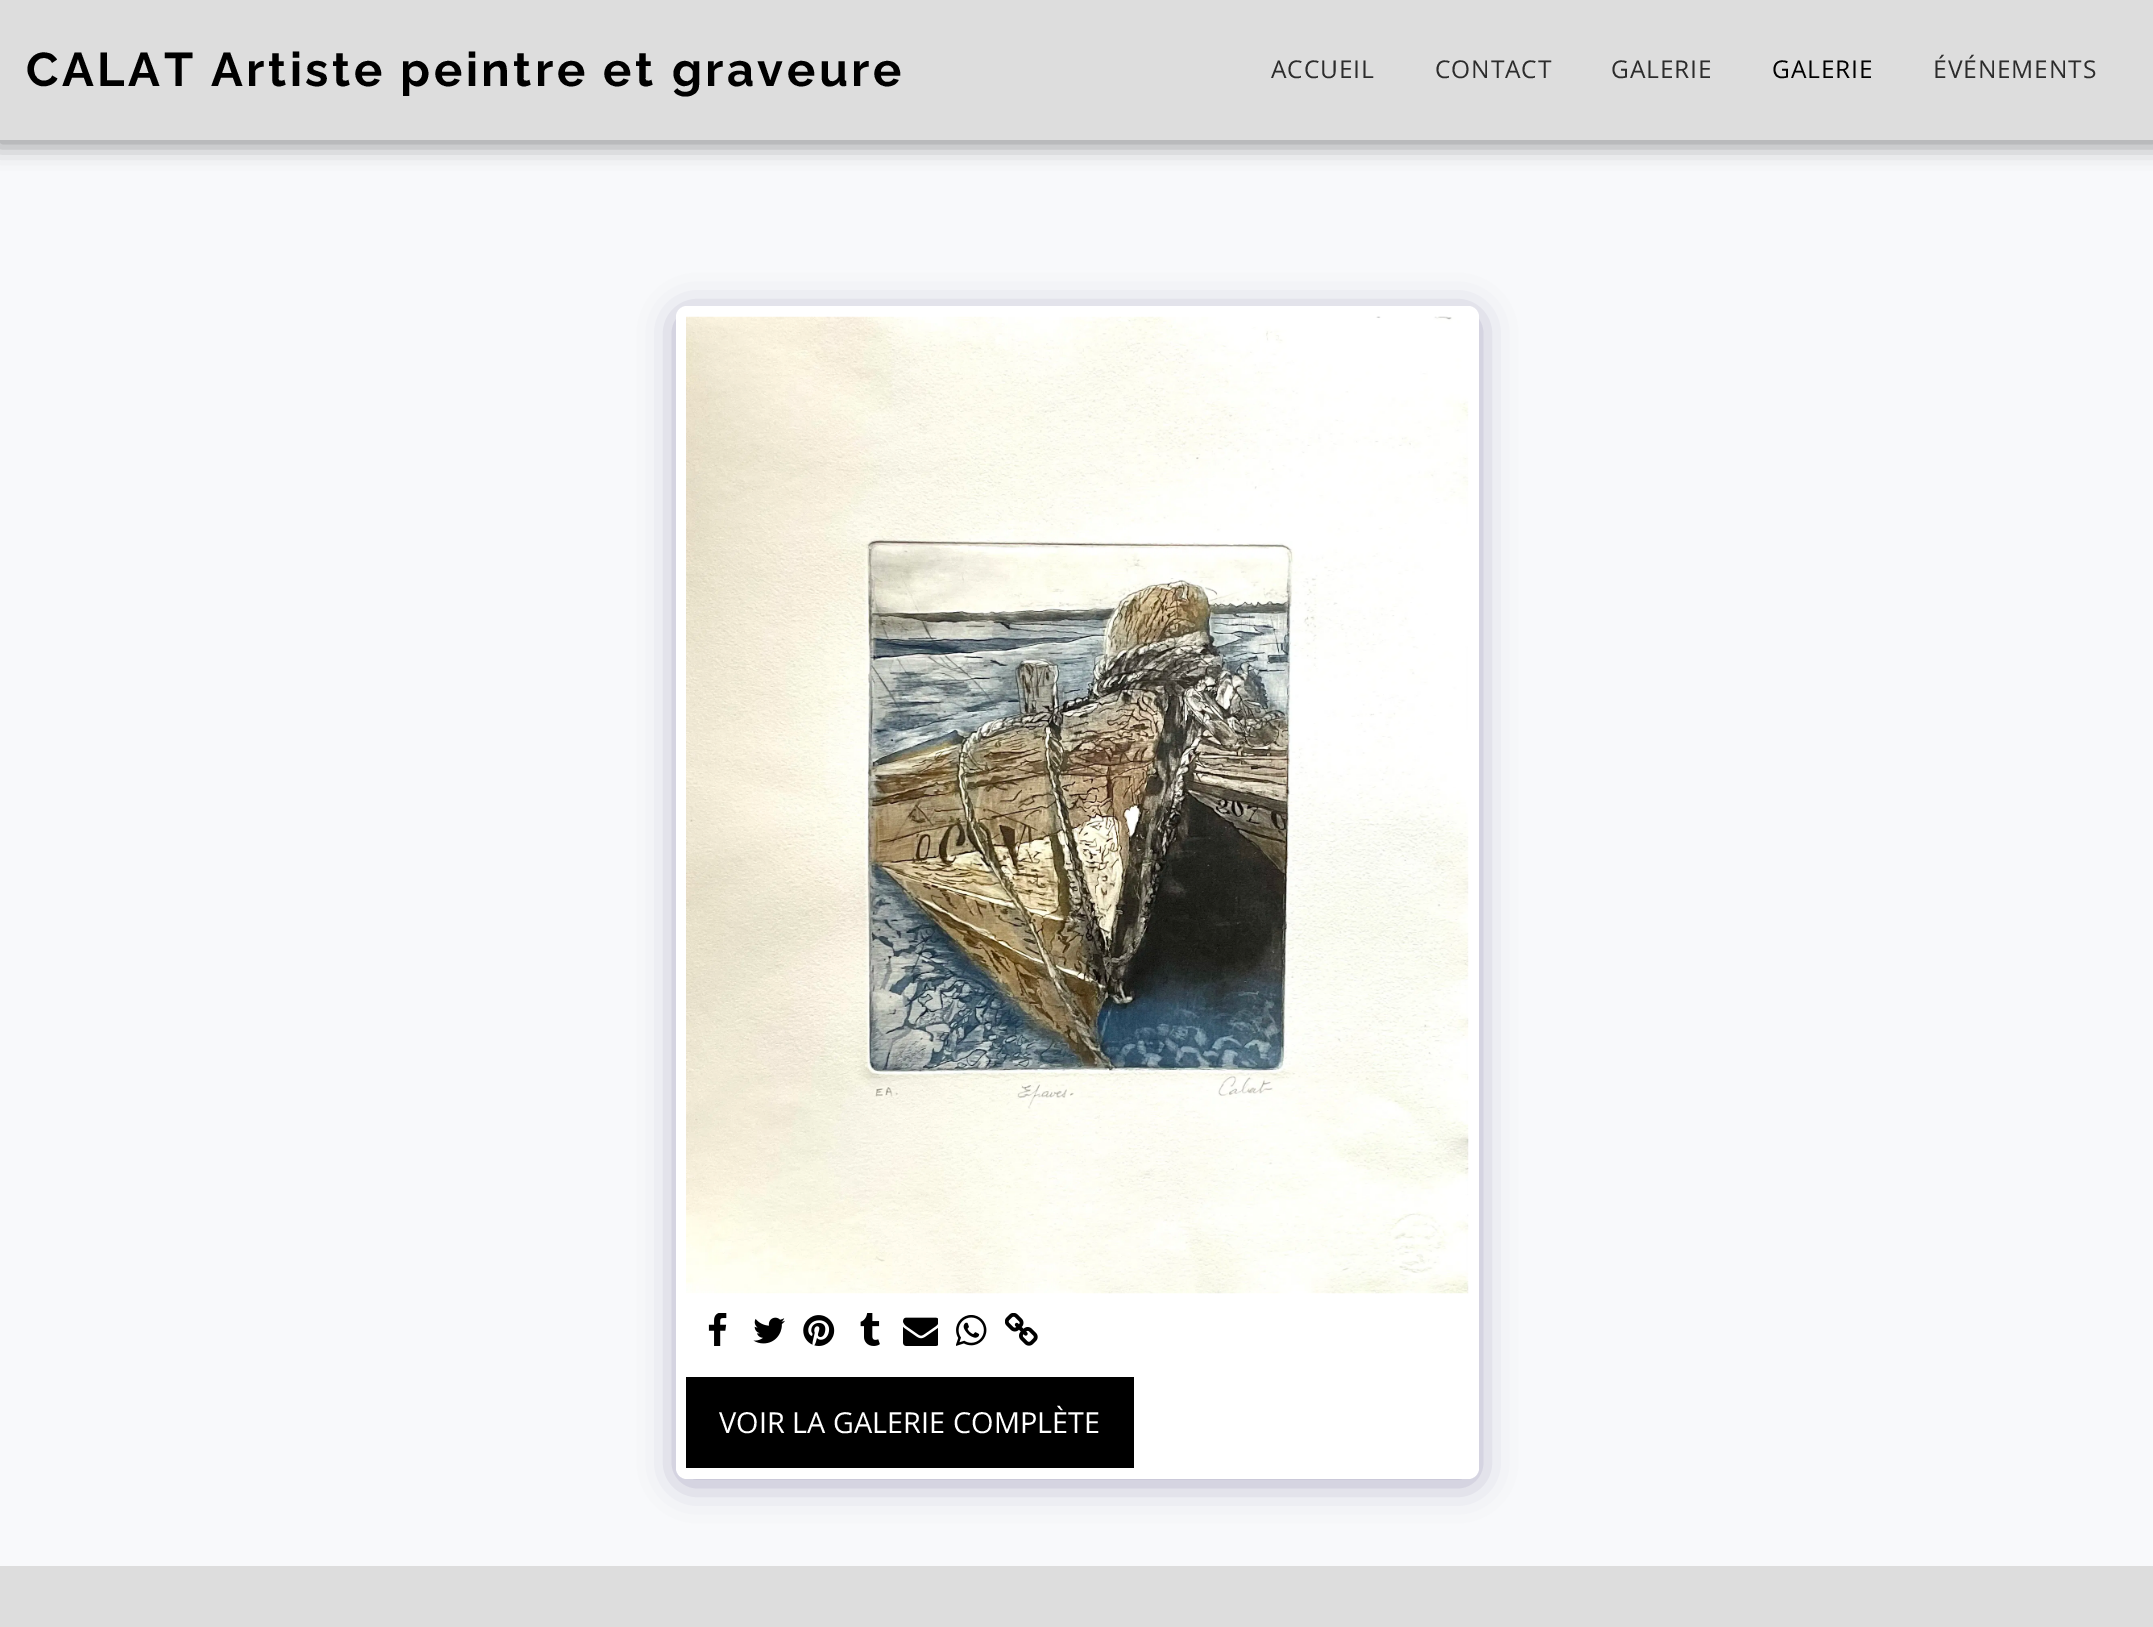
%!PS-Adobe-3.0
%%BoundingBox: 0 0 2153 1627
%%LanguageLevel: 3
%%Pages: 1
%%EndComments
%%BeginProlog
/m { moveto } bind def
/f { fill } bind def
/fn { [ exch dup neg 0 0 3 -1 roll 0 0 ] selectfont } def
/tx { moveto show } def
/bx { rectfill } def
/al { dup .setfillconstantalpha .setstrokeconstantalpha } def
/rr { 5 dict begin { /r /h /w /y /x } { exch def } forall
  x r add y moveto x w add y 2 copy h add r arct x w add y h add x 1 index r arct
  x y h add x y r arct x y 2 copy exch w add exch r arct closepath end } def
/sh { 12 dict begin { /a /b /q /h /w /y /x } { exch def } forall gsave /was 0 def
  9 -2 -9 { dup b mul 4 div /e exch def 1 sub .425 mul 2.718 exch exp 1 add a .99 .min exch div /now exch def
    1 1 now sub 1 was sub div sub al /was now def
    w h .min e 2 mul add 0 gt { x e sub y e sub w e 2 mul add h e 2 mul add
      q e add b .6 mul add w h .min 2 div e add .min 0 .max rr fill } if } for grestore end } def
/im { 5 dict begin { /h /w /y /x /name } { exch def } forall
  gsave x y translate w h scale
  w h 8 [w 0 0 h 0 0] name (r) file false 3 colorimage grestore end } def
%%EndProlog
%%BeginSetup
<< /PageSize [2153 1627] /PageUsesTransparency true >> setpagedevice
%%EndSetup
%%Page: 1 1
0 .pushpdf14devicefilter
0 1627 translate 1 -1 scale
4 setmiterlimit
0.973 0.976 0.984 setrgbcolor
0 0 2153 1627 bx
0 setgray
-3 0 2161 147 0 10.5 0.35 sh
0.867 setgray
0 0 2153 140 bx
/Raleway-Bold 47.25 fn
0 setgray
26 86 m 3.5 0 (CALAT Artiste peintre et graveure) ashow
/OpenSans-Regular 24.5 fn
0.173 setgray
1271 78 m 0.9 0 (ACCUEIL) ashow
1435 78 m 0.9 0 (CONTACT) ashow
1611 78 m 0.9 0 (GALERIE) ashow
0 setgray
1772 78 m 0.9 0 (GALERIE) ashow
0.173 setgray
1933 78 m 0.9 0 (ÉVÉNEMENTS) ashow
0.302 0.247 0.478 setrgbcolor
676 312 803 1172 11 17.5 0.4 sh
1 setgray
676 306 803 1173 11 rr f
(image0.raw) 686 316 783 978 im
(image1.raw) 708 1313 19 33 im
(image2.raw) 753 1317 32 27 im
(image3.raw) 803 1315 32 31 im
(image4.raw) 860 1313 20 33 im
(image5.raw) 903 1317 35 29 im
(image6.raw) 956 1315 31 31 im
(image7.raw) 1005 1313 33 33 im
0 setgray
686 1377 448 91 bx
/OpenSans-Regular 28.9 fn
1 setgray
(VOIR LA GALERIE COMPLÈTE) 719 1433 tx
0.867 setgray
0 1566 2153 61 bx
.poppdf14devicefilter showpage
%%EOF
